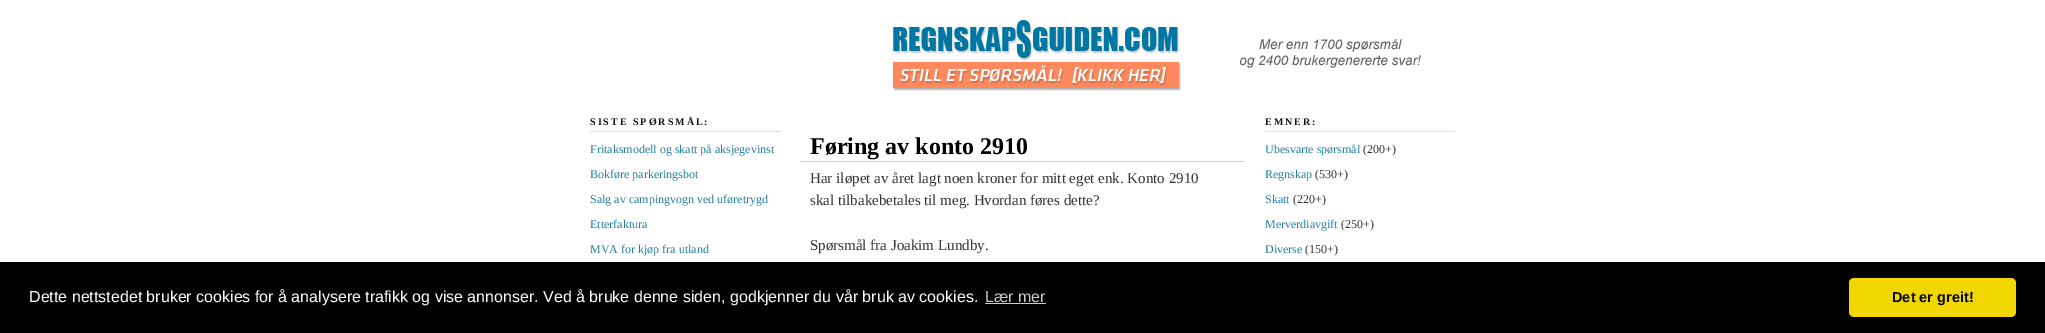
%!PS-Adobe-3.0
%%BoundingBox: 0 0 2045 333
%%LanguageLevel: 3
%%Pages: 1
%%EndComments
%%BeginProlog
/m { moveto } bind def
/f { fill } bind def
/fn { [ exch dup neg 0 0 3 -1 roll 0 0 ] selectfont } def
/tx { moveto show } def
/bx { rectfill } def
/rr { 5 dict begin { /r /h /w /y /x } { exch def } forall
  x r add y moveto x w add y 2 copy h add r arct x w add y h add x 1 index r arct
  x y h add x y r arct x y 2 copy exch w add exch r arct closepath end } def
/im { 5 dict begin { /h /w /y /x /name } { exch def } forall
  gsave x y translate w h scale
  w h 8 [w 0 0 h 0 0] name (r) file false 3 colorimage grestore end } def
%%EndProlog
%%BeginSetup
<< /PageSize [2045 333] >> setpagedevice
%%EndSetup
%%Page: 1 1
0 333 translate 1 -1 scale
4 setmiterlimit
1 setgray
0 0 2045 333 bx
(image0.raw) 893 20 287 41 im
(image1.raw) 1240 39 181 29 im
(image2.raw) 893 62 288 29 im
0.867 setgray
590 131 190 1 bx
/LiberationSerif-Bold 10 fn
0.067 setgray
590 125 m 2 0 (SISTE SPØRSMÅL:) ashow
/LiberationSerif-Regular 12 fn
0.137 0.498 0.631 setrgbcolor
(Fritaksmodell og skatt på aksjegevinst) 590 153 tx
(Bokføre parkeringsbot) 590 178 tx
(Salg av campingvogn ved uføretrygd) 590 203 tx
(Etterfaktura) 590 228 tx
(MVA for kjøp fra utland) 590 253 tx
0.8 setgray
800 161 444 1 bx
/LiberationSerif-Bold 24 fn
0 setgray
(Føring av konto 2910) 810 154 tx
/LiberationSerif-Regular 15 fn
0.2 setgray
(Har iløpet av året lagt noen kroner for mitt eget enk. Konto 2910) 810 183 tx
(skal tilbakebetales til meg. Hvordan føres dette?) 810 205 tx
(Spørsmål fra Joakim Lundby.) 810 250 tx
0.867 setgray
1265 131 190 1 bx
/LiberationSerif-Bold 10 fn
0.067 setgray
1265 125 m 2 0 (EMNER:) ashow
/LiberationSerif-Regular 12 fn
0.137 0.498 0.631 setrgbcolor
(Ubesvarte spørsmål) 1265 153 tx
0.2 setgray
(\(200+\)) 1363 153 tx
0.137 0.498 0.631 setrgbcolor
(Regnskap) 1265 178 tx
0.2 setgray
(\(530+\)) 1315 178 tx
0.137 0.498 0.631 setrgbcolor
(Skatt) 1265 203 tx
0.2 setgray
(\(220+\)) 1293 203 tx
0.137 0.498 0.631 setrgbcolor
(Merverdiavgift) 1265 228 tx
0.2 setgray
(\(250+\)) 1341 228 tx
0.137 0.498 0.631 setrgbcolor
(Diverse) 1265 253 tx
0.2 setgray
(\(150+\)) 1305 253 tx
0 setgray
0 262 2045 71 bx
/LiberationSans-Regular 16 fn
1 setgray
(Dette nettstedet bruker cookies for å analysere trafikk og vise annonser. Ved å bruke denne siden, godkjenner du vår bruk av cookies.) 29 302 tx
0.8 setgray
(Lær mer) 985 302 tx
985 303 61 1 bx
0.945 0.839 0 setrgbcolor
1849 278 167 39 5 rr f
/LiberationSans-Bold 14.5 fn
0 setgray
(Det er greit!) 1892 302 tx
showpage
%%EOF
